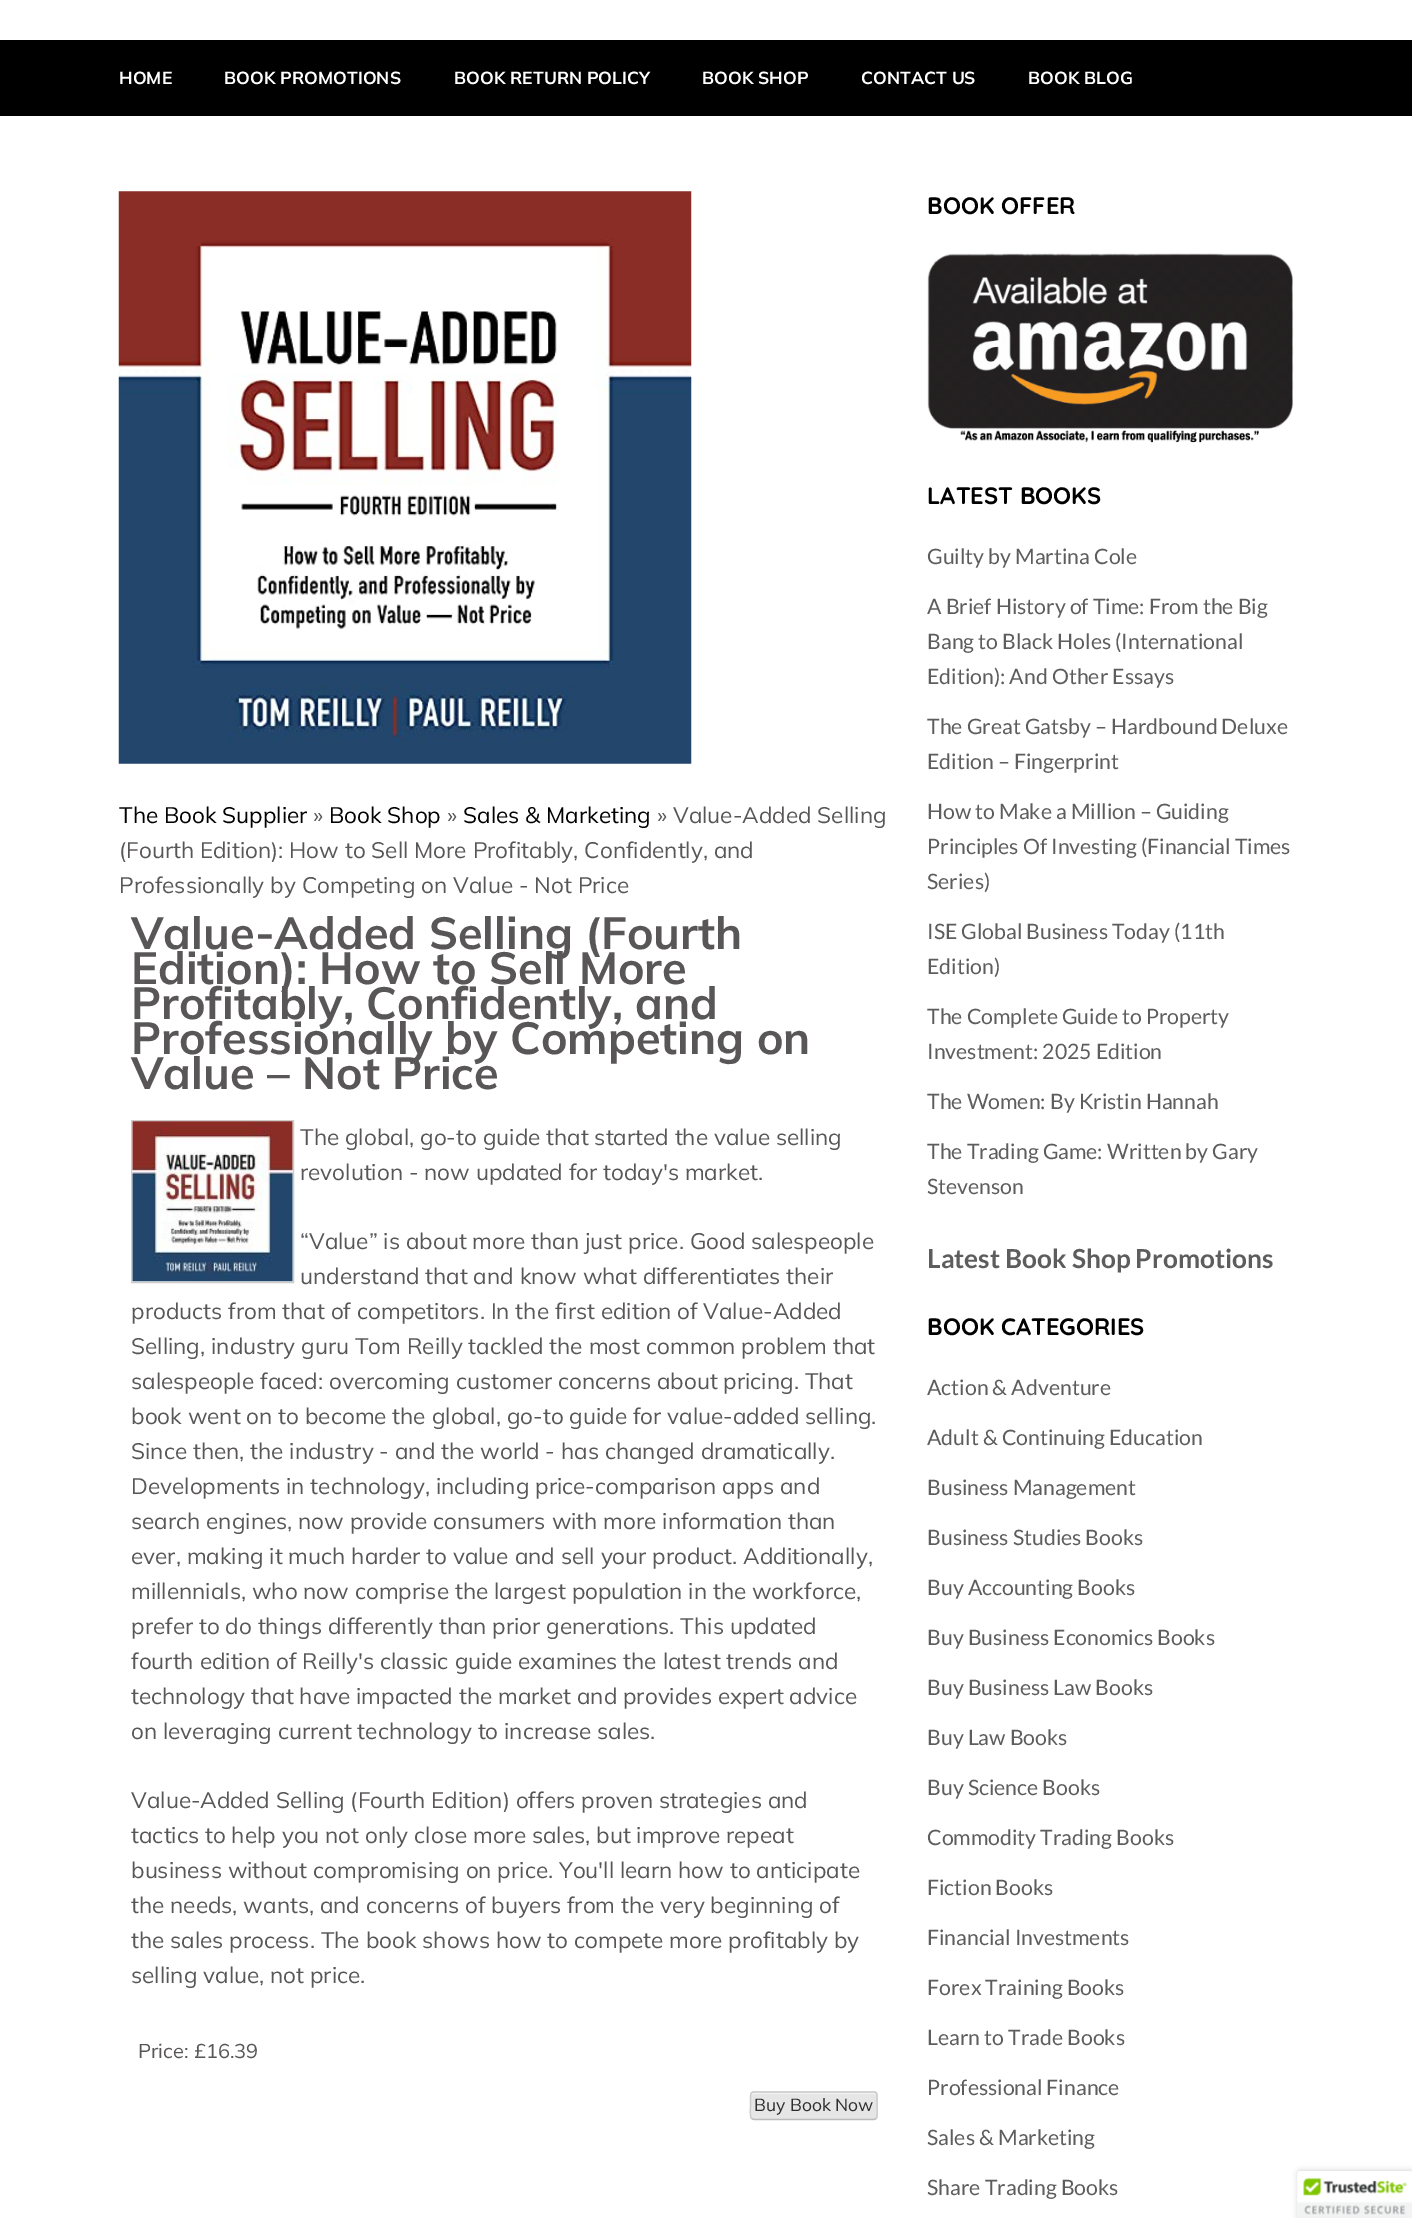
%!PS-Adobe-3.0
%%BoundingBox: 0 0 1412 2218
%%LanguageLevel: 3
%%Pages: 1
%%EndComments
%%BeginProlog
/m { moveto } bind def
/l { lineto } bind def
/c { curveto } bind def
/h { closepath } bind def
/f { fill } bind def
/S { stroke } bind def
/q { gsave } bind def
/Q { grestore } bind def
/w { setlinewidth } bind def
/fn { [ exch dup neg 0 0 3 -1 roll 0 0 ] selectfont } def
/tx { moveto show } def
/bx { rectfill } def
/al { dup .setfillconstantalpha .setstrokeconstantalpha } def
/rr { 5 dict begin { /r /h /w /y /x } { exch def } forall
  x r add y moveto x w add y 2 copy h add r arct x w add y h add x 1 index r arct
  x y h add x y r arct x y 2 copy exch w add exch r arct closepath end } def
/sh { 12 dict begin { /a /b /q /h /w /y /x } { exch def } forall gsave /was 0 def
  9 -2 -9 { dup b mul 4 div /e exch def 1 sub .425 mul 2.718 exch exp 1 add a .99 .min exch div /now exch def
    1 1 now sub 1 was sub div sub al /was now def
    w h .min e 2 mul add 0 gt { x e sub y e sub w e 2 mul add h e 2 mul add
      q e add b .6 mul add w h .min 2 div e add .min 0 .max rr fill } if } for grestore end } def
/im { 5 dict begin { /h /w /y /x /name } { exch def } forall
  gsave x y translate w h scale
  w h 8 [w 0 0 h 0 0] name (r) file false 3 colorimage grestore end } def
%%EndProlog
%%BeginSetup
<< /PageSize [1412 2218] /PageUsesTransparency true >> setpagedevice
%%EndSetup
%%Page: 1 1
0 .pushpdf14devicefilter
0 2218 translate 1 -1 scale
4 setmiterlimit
1 setgray
0 0 1412 2218 bx
0 setgray
0 40 1412 76 bx
/Mulish-Bold 17.5 fn
1 setgray
(HOME) 119 84 tx
(BOOK PROMOTIONS) 224 84 tx
(BOOK RETURN POLICY) 454 84 tx
(BOOK SHOP) 702 84 tx
(CONTACT US) 861 84 tx
(BOOK BLOG) 1028 84 tx
(image0.raw) 118 191 574 573 im
/Mulish-Regular 22.5 fn
0 setgray
(The Book Supplier) 119 823 tx
0.345 0.337 0.337 setrgbcolor
(») 313 823 tx
0 setgray
(Book Shop) 329 823 tx
0.345 0.337 0.337 setrgbcolor
(») 447 823 tx
0 setgray
(Sales & Marketing) 463 823 tx
0.345 0.337 0.337 setrgbcolor
(» Value-Added Selling) 657 823 tx
(\(Fourth Edition\): How to Sell More Profitably, Confidently, and) 119 858 tx
(Professionally by Competing on Value - Not Price) 119 893 tx
/Mulish-Bold 45 fn
(Value-Added Selling \(Fourth) 131 949 tx
(Edition\): How to Sell More) 131 984 tx
(Profitably, Confidently, and) 131 1019 tx
(Professionally by Competing on) 131 1054 tx
(Value – Not Price) 131 1089 tx
0.937 setgray
131.5 1120.5 m 293.5 1120.5 l 293.5 1282.5 l 131.5 1282.5 l h q f Q
0.8 setgray
S
(image1.raw) 132 1121 161 161 im
/Mulish-Regular 22.5 fn
0.345 0.337 0.337 setrgbcolor
(The global, go-to guide that started the value selling) 300 1145 tx
(revolution - now updated for today's market.) 300 1180 tx
(“Value” is about more than just price. Good salespeople) 300 1249 tx
(understand that and know what differentiates their) 300 1284 tx
(products from that of competitors. In the first edition of Value-Added) 131 1319 tx
(Selling, industry guru Tom Reilly tackled the most common problem that) 131 1354 tx
(salespeople faced: overcoming customer concerns about pricing. That) 131 1389 tx
(book went on to become the global, go-to guide for value-added selling.) 131 1424 tx
(Since then, the industry - and the world - has changed dramatically.) 131 1459 tx
(Developments in technology, including price-comparison apps and) 131 1494 tx
(search engines, now provide consumers with more information than) 131 1529 tx
(ever, making it much harder to value and sell your product. Additionally,) 131 1564 tx
(millennials, who now comprise the largest population in the workforce,) 131 1599 tx
(prefer to do things differently than prior generations. This updated) 131 1634 tx
(fourth edition of Reilly's classic guide examines the latest trends and) 131 1669 tx
(technology that have impacted the market and provides expert advice) 131 1704 tx
(on leveraging current technology to increase sales.) 131 1739 tx
(Value-Added Selling \(Fourth Edition\) offers proven strategies and) 131 1808 tx
(tactics to help you not only close more sales, but improve repeat) 131 1843 tx
(business without compromising on price. You'll learn how to anticipate) 131 1878 tx
(the needs, wants, and concerns of buyers from the very beginning of) 131 1913 tx
(the sales process. The book shows how to compete more profitably by) 131 1948 tx
(selling value, not price.) 131 1983 tx
/Mulish-Regular 20 fn
(Price: £16.39) 138 2058 tx
0.902 setgray
750 2091 128 29 4 rr f
0.953 setgray
754 2094 m 874 2094 l 876 2095 l 876 2096 l 876 2094 875 2093 874 2093 c 753 2093 l 751 2094 751 2095 751 2096 c 751 2095 752 2094 754 2094 c h f
0.733 setgray
1.2 w
876 2118.5 m 874 2119.5 l 754 2119.5 l 751.5 2118.5 l S
0.8 setgray
751.5 2118.5 m 749.5 2116.5 750.5 2108 750.5 2105.5 c 750.5 2098.5 l 750.5 2096 750 2092 754 2092 c 874 2092 l 877.5 2092 877 2096 877 2098.5 c 877 2105.5 l 877 2108 878 2116.5 876 2118.5 c S
/Mulish-Regular 17.5 fn
0.18 setgray
(Buy Book Now) 754 2111 tx
/Quicksand-Bold 23.75 fn
0 setgray
(BOOK OFFER) 927 214 tx
(image2.raw) 927 253 367 190 im
(LATEST BOOKS) 927 504 tx
/Lato-Regular 21.25 fn
0.365 setgray
(Guilty by Martina Cole) 927 564 tx
(A Brief History of Time: From the Big) 927 614 tx
(Bang to Black Holes \(International) 927 649 tx
(Edition\): And Other Essays) 927 684 tx
(The Great Gatsby – Hardbound Deluxe) 927 734 tx
(Edition – Fingerprint) 927 769 tx
(How to Make a Million – Guiding) 927 819 tx
(Principles Of Investing \(Financial Times) 927 854 tx
(Series\)) 927 889 tx
(ISE Global Business Today \(11th) 927 939 tx
(Edition\)) 927 974 tx
(The Complete Guide to Property) 927 1024 tx
(Investment: 2025 Edition) 927 1059 tx
(The Women: By Kristin Hannah) 927 1109 tx
(The Trading Game: Written by Gary) 927 1159 tx
(Stevenson) 927 1194 tx
/Lato-Bold 26.25 fn
(Latest Book Shop Promotions) 927 1268 tx
/Quicksand-Bold 23.75 fn
0 setgray
(BOOK CATEGORIES) 927 1335 tx
/Lato-Regular 21.25 fn
0.365 setgray
(Action & Adventure) 927 1395 tx
(Adult & Continuing Education) 927 1445 tx
(Business Management) 927 1495 tx
(Business Studies Books) 927 1545 tx
(Buy Accounting Books) 927 1595 tx
(Buy Business Economics Books) 927 1645 tx
(Buy Business Law Books) 927 1695 tx
(Buy Law Books) 927 1745 tx
(Buy Science Books) 927 1795 tx
(Commodity Trading Books) 927 1845 tx
(Fiction Books) 927 1895 tx
(Financial Investments) 927 1945 tx
(Forex Training Books) 927 1995 tx
(Learn to Trade Books) 927 2045 tx
(Professional Finance) 927 2095 tx
(Sales & Marketing) 927 2145 tx
(Share Trading Books) 927 2195 tx
0 setgray
1298 2171 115 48 2.5 3 0.2 sh
1 setgray
1300.5 2171 m 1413 2171 l 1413 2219 l 1298 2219 l 1298 2173.5 l 1298 2172 1299 2171 1300.5 2171 c h f
(image3.raw) 1297 2171 115 47 im
.poppdf14devicefilter showpage
%%EOF
